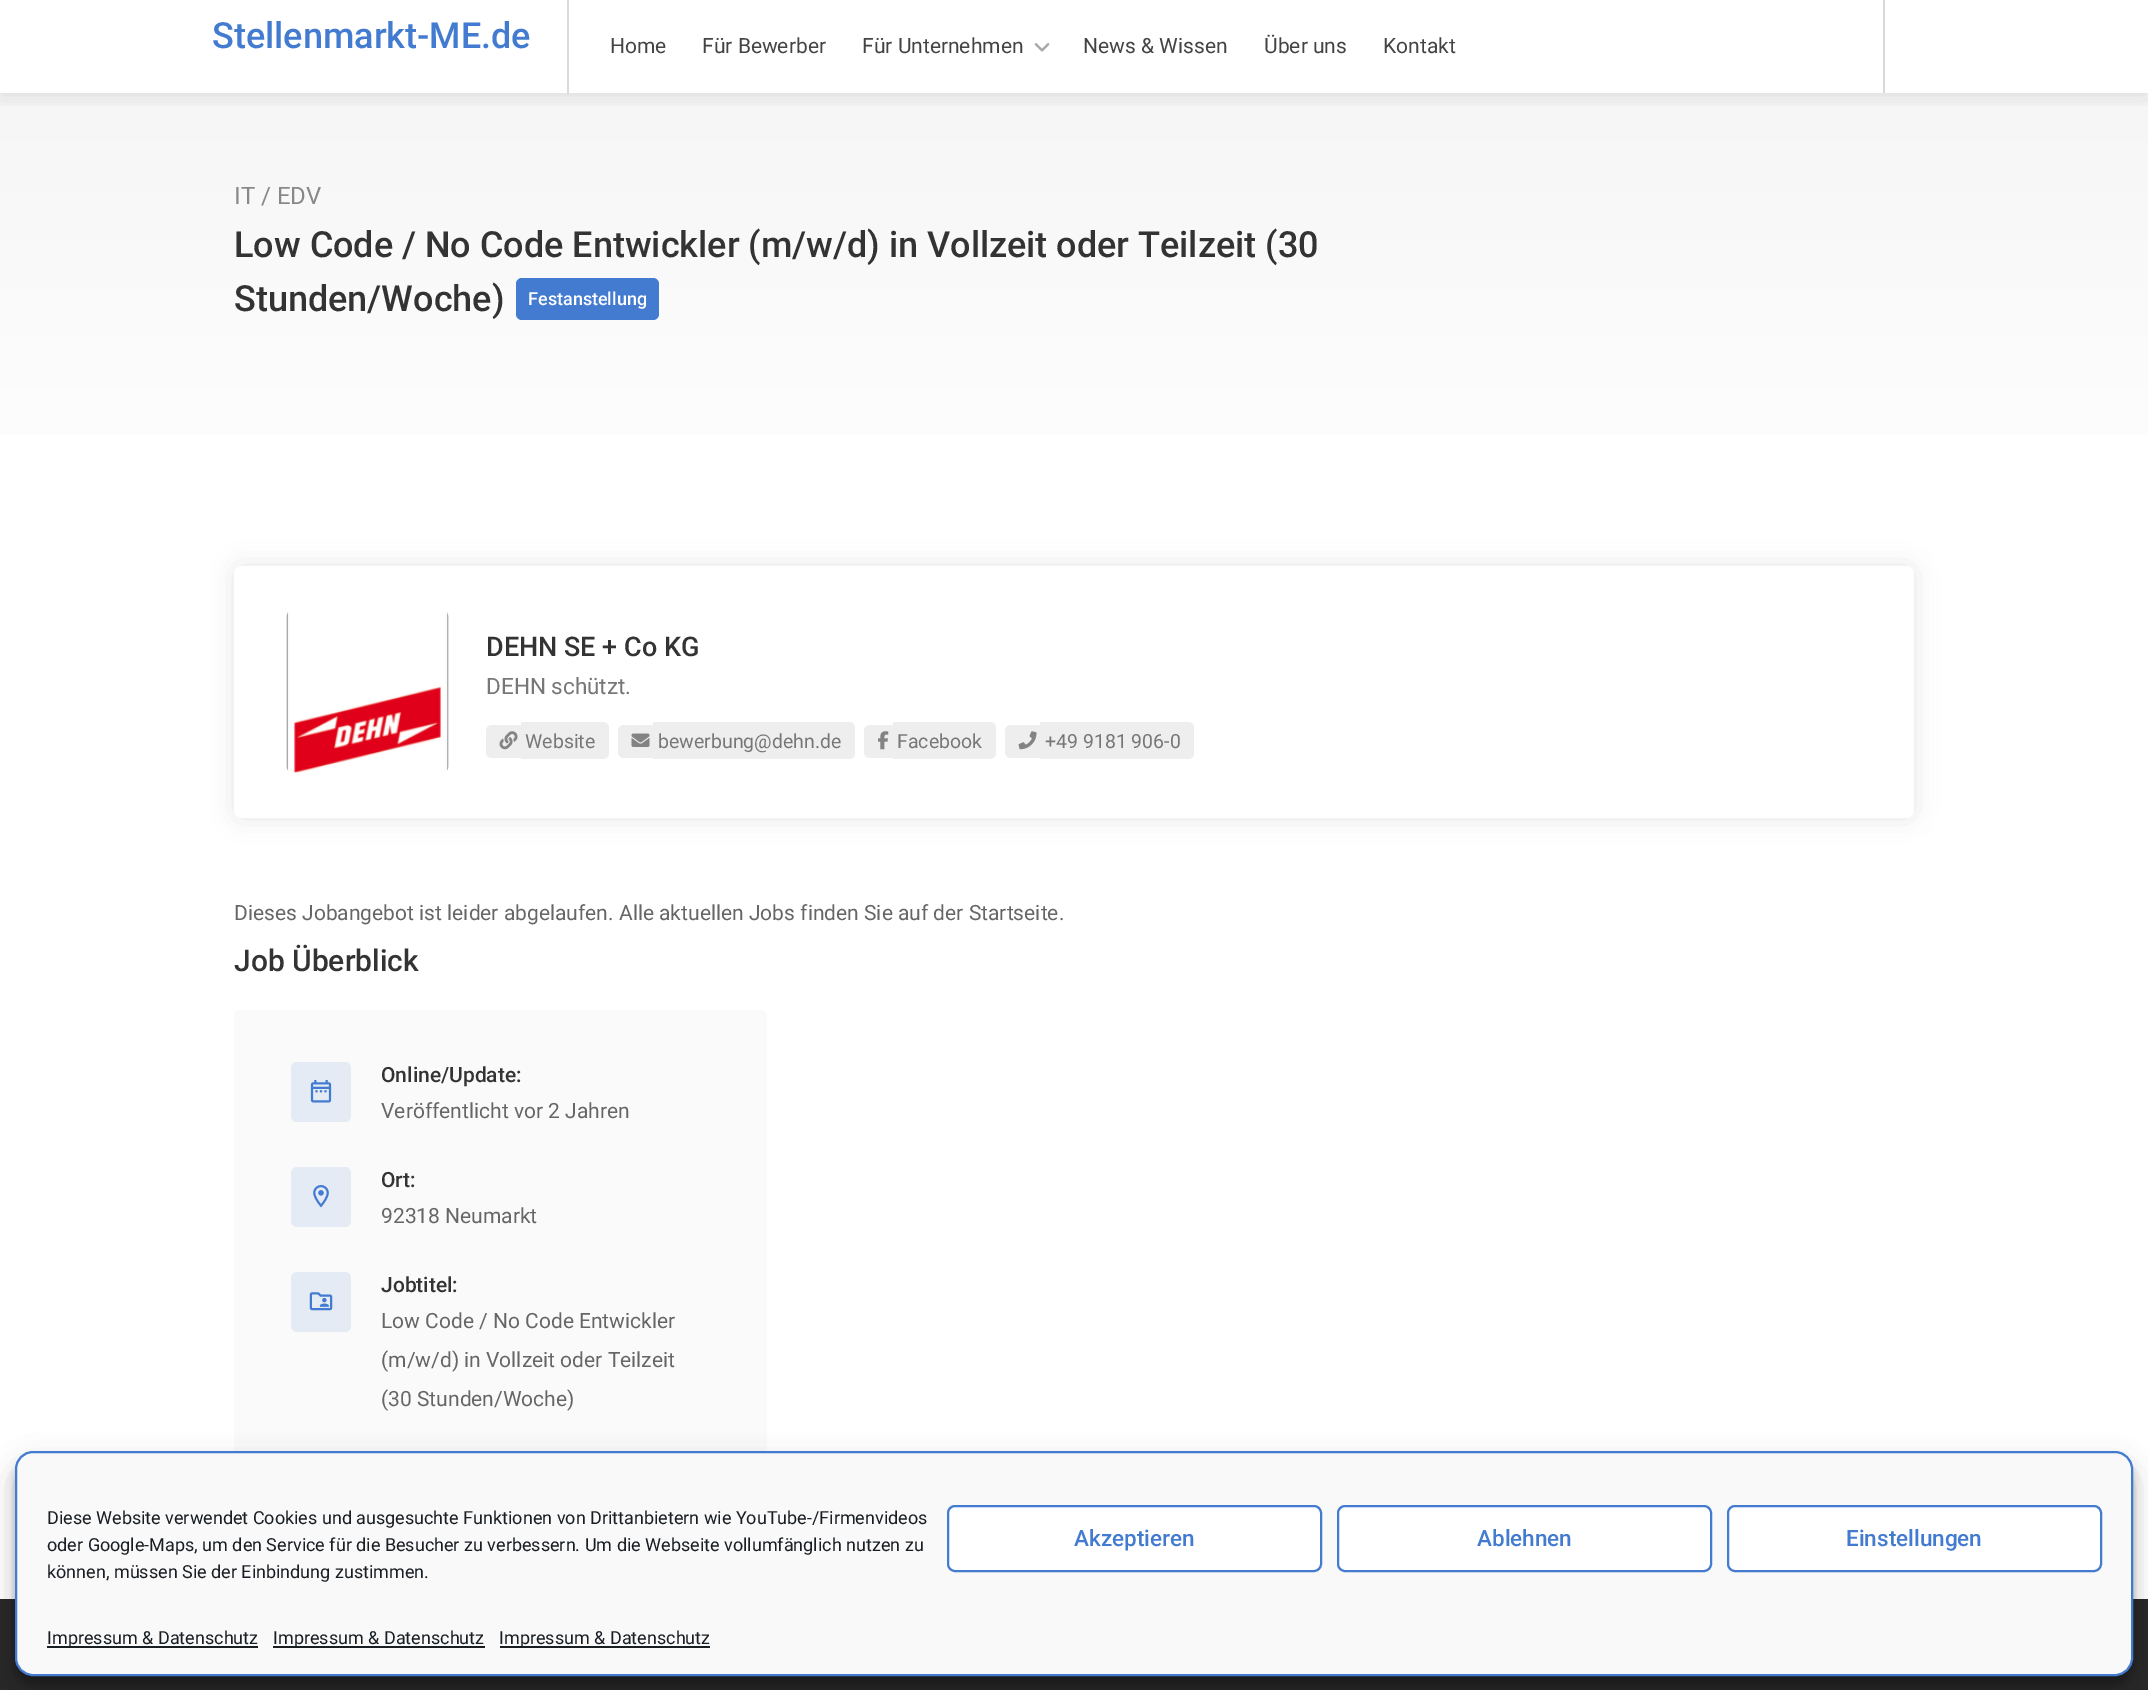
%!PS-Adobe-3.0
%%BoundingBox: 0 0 2148 1690
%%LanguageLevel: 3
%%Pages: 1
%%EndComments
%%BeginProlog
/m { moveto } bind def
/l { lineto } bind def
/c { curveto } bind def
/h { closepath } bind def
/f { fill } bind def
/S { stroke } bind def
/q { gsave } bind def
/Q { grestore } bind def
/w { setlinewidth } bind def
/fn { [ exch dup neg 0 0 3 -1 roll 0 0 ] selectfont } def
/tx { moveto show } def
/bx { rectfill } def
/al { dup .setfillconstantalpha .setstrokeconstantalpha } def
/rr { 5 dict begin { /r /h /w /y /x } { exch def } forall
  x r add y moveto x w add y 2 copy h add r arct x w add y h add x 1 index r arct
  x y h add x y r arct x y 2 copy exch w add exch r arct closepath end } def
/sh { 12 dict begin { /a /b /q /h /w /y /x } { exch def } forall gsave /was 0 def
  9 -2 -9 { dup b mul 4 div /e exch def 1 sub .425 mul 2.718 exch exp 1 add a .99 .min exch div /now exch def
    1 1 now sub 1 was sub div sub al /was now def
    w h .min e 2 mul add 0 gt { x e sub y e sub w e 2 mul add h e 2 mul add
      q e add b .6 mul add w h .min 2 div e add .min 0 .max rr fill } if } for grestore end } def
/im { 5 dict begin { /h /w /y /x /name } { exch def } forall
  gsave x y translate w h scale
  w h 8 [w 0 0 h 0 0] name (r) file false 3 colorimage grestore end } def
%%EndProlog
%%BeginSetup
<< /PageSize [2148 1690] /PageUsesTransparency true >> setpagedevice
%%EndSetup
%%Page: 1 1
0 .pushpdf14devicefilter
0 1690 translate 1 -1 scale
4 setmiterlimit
1 setgray
0 0 2148 1690 bx
q 0 93 m 2148 93 l 2148 435 l 0 435 l h clip newpath
<< /ShadingType 2 /ColorSpace /DeviceRGB /Coords [1074 93 1074 566] /Extend [true true] /Function << /FunctionType 2 /Domain [0 1] /C0 [0.965 0.965 0.965] /C1 [1 1 1] /N 1 >> >> shfill Q
q
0 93 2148 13 rectclip
0 setgray
0 0 2148 93 0 13.5 0.12 sh
Q
0.851 setgray
567 0 2 93 bx
/Roboto-Medium 36 fn
0.263 0.482 0.816 setrgbcolor
(Stellenmarkt-ME.de) 212 48 tx
/Roboto-Regular 21 fn
0.267 setgray
(Home) 610 53 tx
(Für Bewerber) 702 53 tx
(Für Unternehmen) 862 53 tx
(image0.raw) 1034 43 16 9 im
(News & Wissen) 1083 53 tx
(Über uns) 1264 53 tx
(Kontakt) 1383 53 tx
0.851 setgray
1883 0 2 93 bx
/Roboto-Regular 24 fn
0.533 setgray
(IT / EDV) 234 204 tx
/Roboto-Medium 36 fn
0.2 setgray
(Low Code / No Code Entwickler \(m/w/d\) in Vollzeit oder Teilzeit \(30) 234 257 tx
(Stunden/Woche\)) 234 311 tx
0.263 0.482 0.816 setrgbcolor
516 278 143 42 6 rr f
/Roboto-Medium 18 fn
1 setgray
(Festanstellung) 528 305 tx
0 setgray
234 566 1680 252 8 12 0.1 sh
1 setgray
234 566 1680 252 8 rr f
(image1.raw) 286 612 163 161 im
/Roboto-Medium 27 fn
0.2 setgray
(DEHN SE + Co KG) 486 656 tx
/Roboto-Regular 22.5 fn
0.467 setgray
(DEHN schützt.) 486 694 tx
0.933 setgray
492 725 m 521 725 l 521 758 l 492 758 l 488.5 758 486 755.5 486 752 c 486 731 l 486 727.5 488.5 725 492 725 c h f
521 722 m 603 722 l 606.5 722 609 724.5 609 728 c 609 753 l 609 756.5 606.5 759 603 759 c 521 759 l h f
(image2.raw) 499 731 19 19 im
/Roboto-Regular 19.5 fn
0.467 setgray
(Website) 525 748 tx
0.933 setgray
624 725 m 653 725 l 653 758 l 624 758 l 620.5 758 618 755.5 618 752 c 618 731 l 618 727.5 620.5 725 624 725 c h f
653 722 m 849 722 l 852.5 722 855 724.5 855 728 c 855 753 l 855 756.5 852.5 759 849 759 c 653 759 l h f
(image3.raw) 631 733 19 14 im
0.467 setgray
(bewerbung@dehn.de) 658 748 tx
0.933 setgray
870 725 m 893 725 l 893 758 l 870 758 l 866.5 758 864 755.5 864 752 c 864 731 l 864 727.5 866.5 725 870 725 c h f
893 722 m 990 722 l 993.5 722 996 724.5 996 728 c 996 753 l 996 756.5 993.5 759 990 759 c 893 759 l h f
(image4.raw) 878 731 11 19 im
0.467 setgray
(Facebook) 897 748 tx
0.933 setgray
1011 725 m 1040 725 l 1040 758 l 1011 758 l 1007.5 758 1005 755.5 1005 752 c 1005 731 l 1005 727.5 1007.5 725 1011 725 c h f
1040 722 m 1188 722 l 1191.5 722 1194 724.5 1194 728 c 1194 753 l 1194 756.5 1191.5 759 1188 759 c 1040 759 l h f
(image5.raw) 1018 731 19 19 im
0.467 setgray
(+49 9181 906-0) 1045 748 tx
/Roboto-Regular 21 fn
0.4 setgray
(Dieses Jobangebot ist leider abgelaufen. Alle aktuellen Jobs finden Sie auf der Startseite.) 234 920 tx
/Roboto-Medium 30 fn
0.2 setgray
(Job Überblick) 234 971 tx
0.98 setgray
234 1010 533 454 6 rr f
0.894 0.922 0.961 setrgbcolor
291 1062 60 60 6 rr f
(image6.raw) 310 1080 22 23 im
/Roboto-Medium 21 fn
0.2 setgray
(Online/Update:) 381 1082 tx
/Roboto-Regular 21 fn
0.4 setgray
(Veröffentlicht vor 2 Jahren) 381 1118 tx
0.894 0.922 0.961 setrgbcolor
291 1167 60 60 6 rr f
(image7.raw) 313 1185 16 23 im
/Roboto-Medium 21 fn
0.2 setgray
(Ort:) 381 1187 tx
/Roboto-Regular 21 fn
0.4 setgray
(92318 Neumarkt) 381 1223 tx
0.894 0.922 0.961 setrgbcolor
291 1272 60 60 6 rr f
(image8.raw) 309 1292 24 19 im
/Roboto-Medium 21 fn
0.2 setgray
(Jobtitel:) 381 1292 tx
/Roboto-Regular 21 fn
0.4 setgray
(Low Code / No Code Entwickler) 381 1328 tx
(\(m/w/d\) in Vollzeit oder Teilzeit) 381 1367 tx
(\(30 Stunden/Woche\)) 381 1406 tx
0.157 setgray
0 1599 2148 91 bx
0 setgray
15 1460 2118 225 18 4.5 0.23 sh
15 1466 2118 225 18 15 0.19 sh
0.976 setgray
16 1452 2116 223 17 rr q f Q
0.263 0.482 0.816 setrgbcolor
2 w
S
/Roboto-Regular 18 fn
0.098 0.118 0.137 setrgbcolor
(Diese Website verwendet Cookies und ausgesuchte Funktionen von Drittanbietern wie YouTube-/Firmenvideos) 47 1524 tx
(oder Google-Maps, um den Service für die Besucher zu verbessern. Um die Webseite vollumfänglich nutzen zu) 47 1551 tx
(können, müssen Sie der Einbindung zustimmen.) 47 1578 tx
1 setgray
948 1506 373 65 7 rr q f Q
0.263 0.482 0.816 setrgbcolor
S
/Roboto-Medium 22.5 fn
(Akzeptieren) 1074 1546 tx
1 setgray
1338 1506 373 65 7 rr q f Q
0.263 0.482 0.816 setrgbcolor
S
(Ablehnen) 1477 1546 tx
1 setgray
1728 1506 373 65 7 rr q f Q
0.263 0.482 0.816 setrgbcolor
S
(Einstellungen) 1846 1546 tx
0.098 0.118 0.137 setrgbcolor
47 1646 211 2 bx
/Roboto-Regular 18 fn
(Impressum & Datenschutz) 47 1644 tx
273 1646 212 2 bx
(Impressum & Datenschutz) 273 1644 tx
500 1646 210 2 bx
(Impressum & Datenschutz) 499 1644 tx
.poppdf14devicefilter showpage
%%EOF
